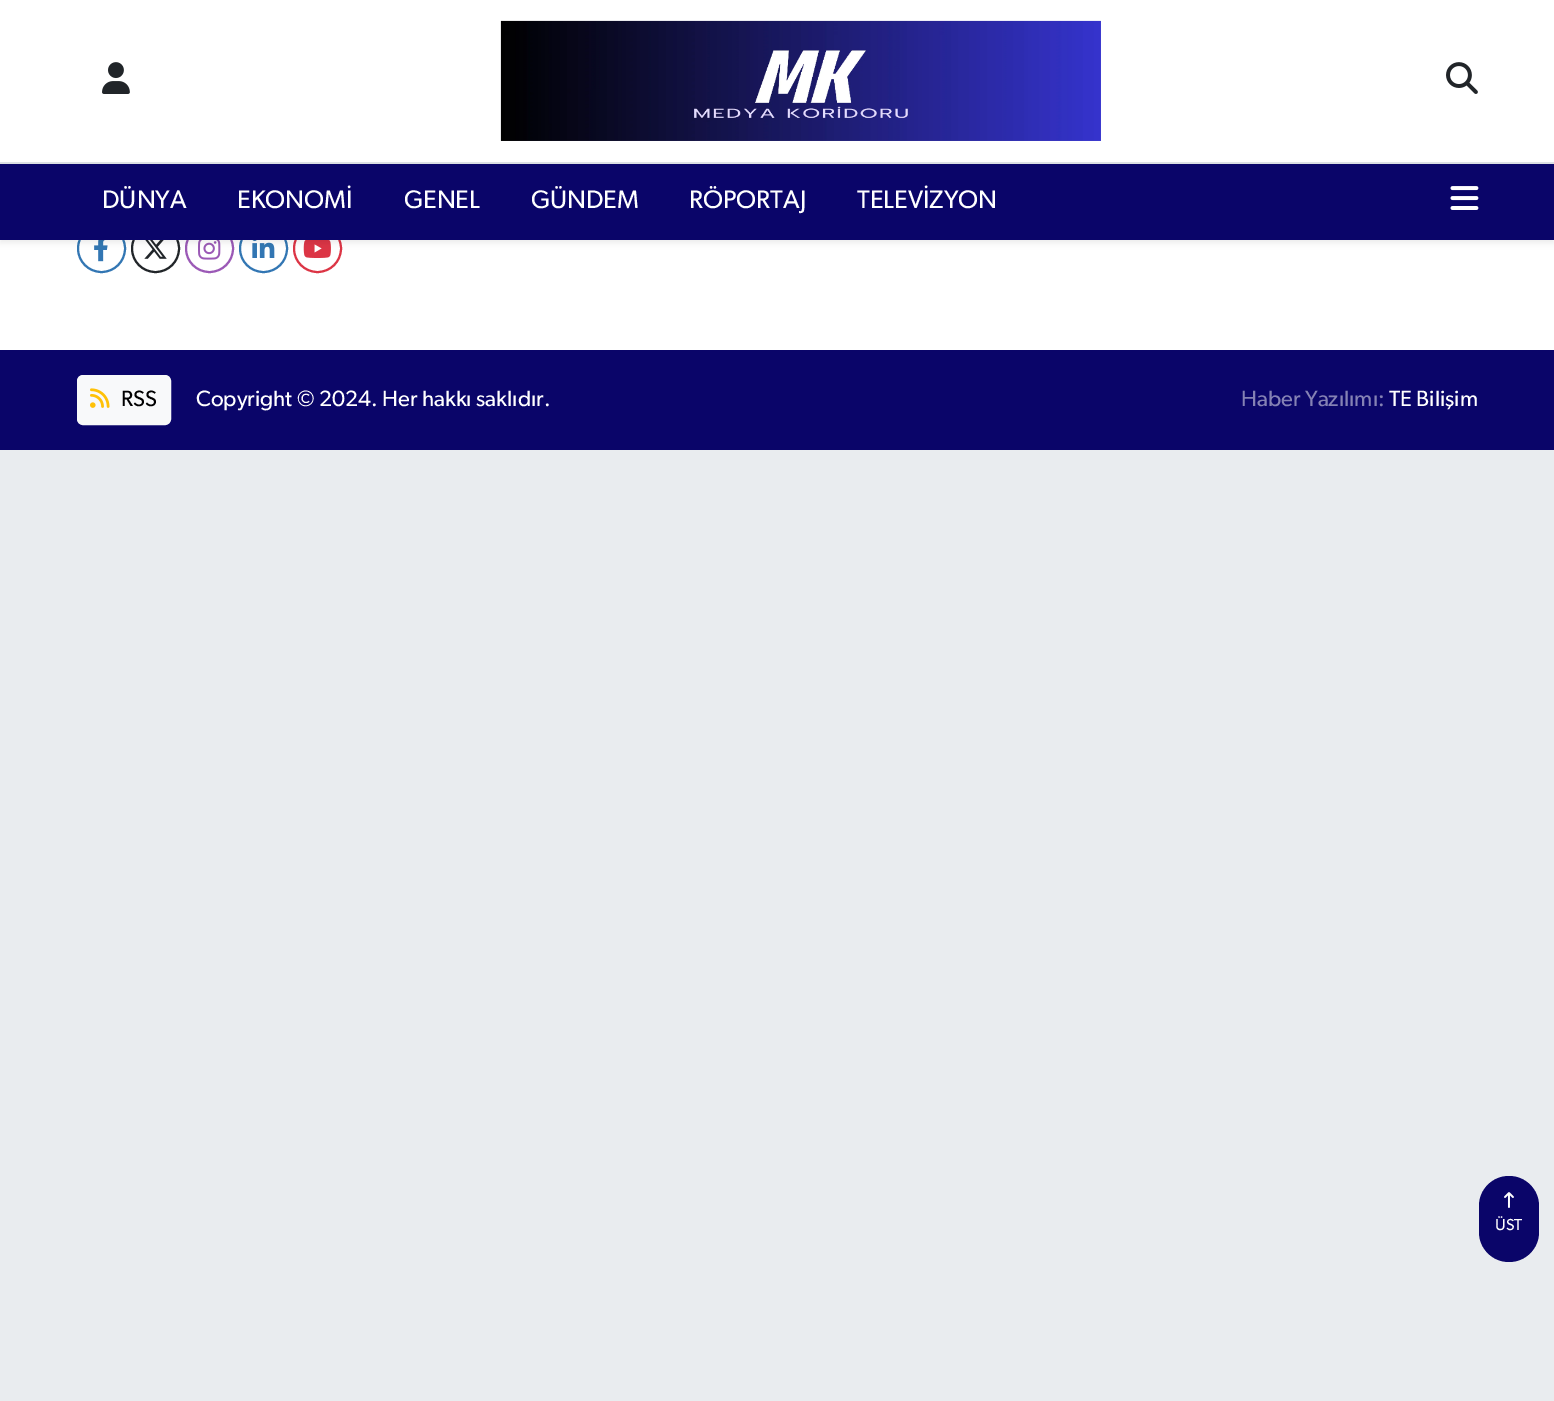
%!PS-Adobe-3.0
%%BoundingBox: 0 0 1554 1401
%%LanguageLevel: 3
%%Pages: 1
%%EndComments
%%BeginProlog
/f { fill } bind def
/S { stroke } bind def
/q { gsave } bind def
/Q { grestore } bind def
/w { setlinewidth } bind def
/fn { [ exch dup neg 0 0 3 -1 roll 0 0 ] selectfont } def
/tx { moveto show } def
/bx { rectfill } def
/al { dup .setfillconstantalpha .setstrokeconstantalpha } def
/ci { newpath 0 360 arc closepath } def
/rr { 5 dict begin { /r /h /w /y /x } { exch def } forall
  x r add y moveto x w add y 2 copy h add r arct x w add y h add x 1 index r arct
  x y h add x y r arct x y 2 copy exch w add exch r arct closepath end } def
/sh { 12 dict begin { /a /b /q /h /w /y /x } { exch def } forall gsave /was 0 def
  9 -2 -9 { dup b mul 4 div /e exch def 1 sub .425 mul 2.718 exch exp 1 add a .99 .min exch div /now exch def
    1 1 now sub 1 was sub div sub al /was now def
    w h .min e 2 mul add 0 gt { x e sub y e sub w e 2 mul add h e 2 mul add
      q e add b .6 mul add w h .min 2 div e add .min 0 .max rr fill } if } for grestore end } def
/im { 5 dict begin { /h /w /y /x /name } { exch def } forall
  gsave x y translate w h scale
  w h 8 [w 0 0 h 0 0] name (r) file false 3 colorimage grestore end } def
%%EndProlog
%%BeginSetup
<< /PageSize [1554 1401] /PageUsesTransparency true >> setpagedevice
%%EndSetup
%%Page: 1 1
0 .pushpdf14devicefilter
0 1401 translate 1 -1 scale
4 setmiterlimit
0.914 0.925 0.937 setrgbcolor
0 0 1554 1401 bx
1 setgray
0 0 1554 162 bx
0.871 0.886 0.902 setrgbcolor
0 162 1554 2 bx
(image0.raw) 102 62 28 32 im
(image1.raw) 500 20 601 121 im
(image2.raw) 1446 62 32 32 im
1 setgray
0 240 1554 110 bx
0.196 0.463 0.702 setrgbcolor
2 w
101.5 248.5 23.5 ci S
(image4.raw) 94 240 14 22 im
0.129 0.145 0.161 setrgbcolor
155.5 248.5 23.5 ci S
(image5.raw) 144 240 23 19 im
0.608 0.349 0.714 setrgbcolor
209.5 248.5 23.5 ci S
(image6.raw) 198 240 23 20 im
0.196 0.463 0.702 setrgbcolor
263.5 248.5 23.5 ci S
(image7.raw) 252 240 23 18 im
0.863 0.208 0.271 setrgbcolor
317.5 248.5 23.5 ci S
(image8.raw) 303 240 28 18 im
0 setgray
0 167 1554 76 0 3 0.07 sh
0.039 0.02 0.412 setrgbcolor
0 164 1554 76 bx
/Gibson-Regular 25.5 fn
1 setgray
(DÜNYA) 102 208 tx
(EKONOMİ) 237 208 tx
(GENEL) 404 208 tx
(GÜNDEM) 531 208 tx
(RÖPORTAJ) 689 208 tx
(TELEVİZYON) 857 208 tx
(image3.raw) 1450 186 29 24 im
0.039 0.02 0.412 setrgbcolor
0 350 1554 100 bx
0.973 0.976 0.98 setrgbcolor
78 376 92 48 5 rr q f Q
S
(image9.raw) 90 388 20 20 im
/Gibson-Regular 22.25 fn
0 setgray
(RSS) 121 406 tx
1 setgray
(Copyright © 2024. Her hakkı saklıdır.) 196 406 tx
0.522 0.51 0.706 setrgbcolor
(Haber Yazılımı:) 1241 406 tx
1 setgray
(TE Bilişim) 1389 406 tx
0.039 0.02 0.412 setrgbcolor
1479 1176 60 86 30 rr f
(image10.raw) 1504 1192 10 16 im
/Gibson-Regular 16 fn
1 setgray
(ÜST) 1495 1230 tx
.poppdf14devicefilter showpage
%%EOF
